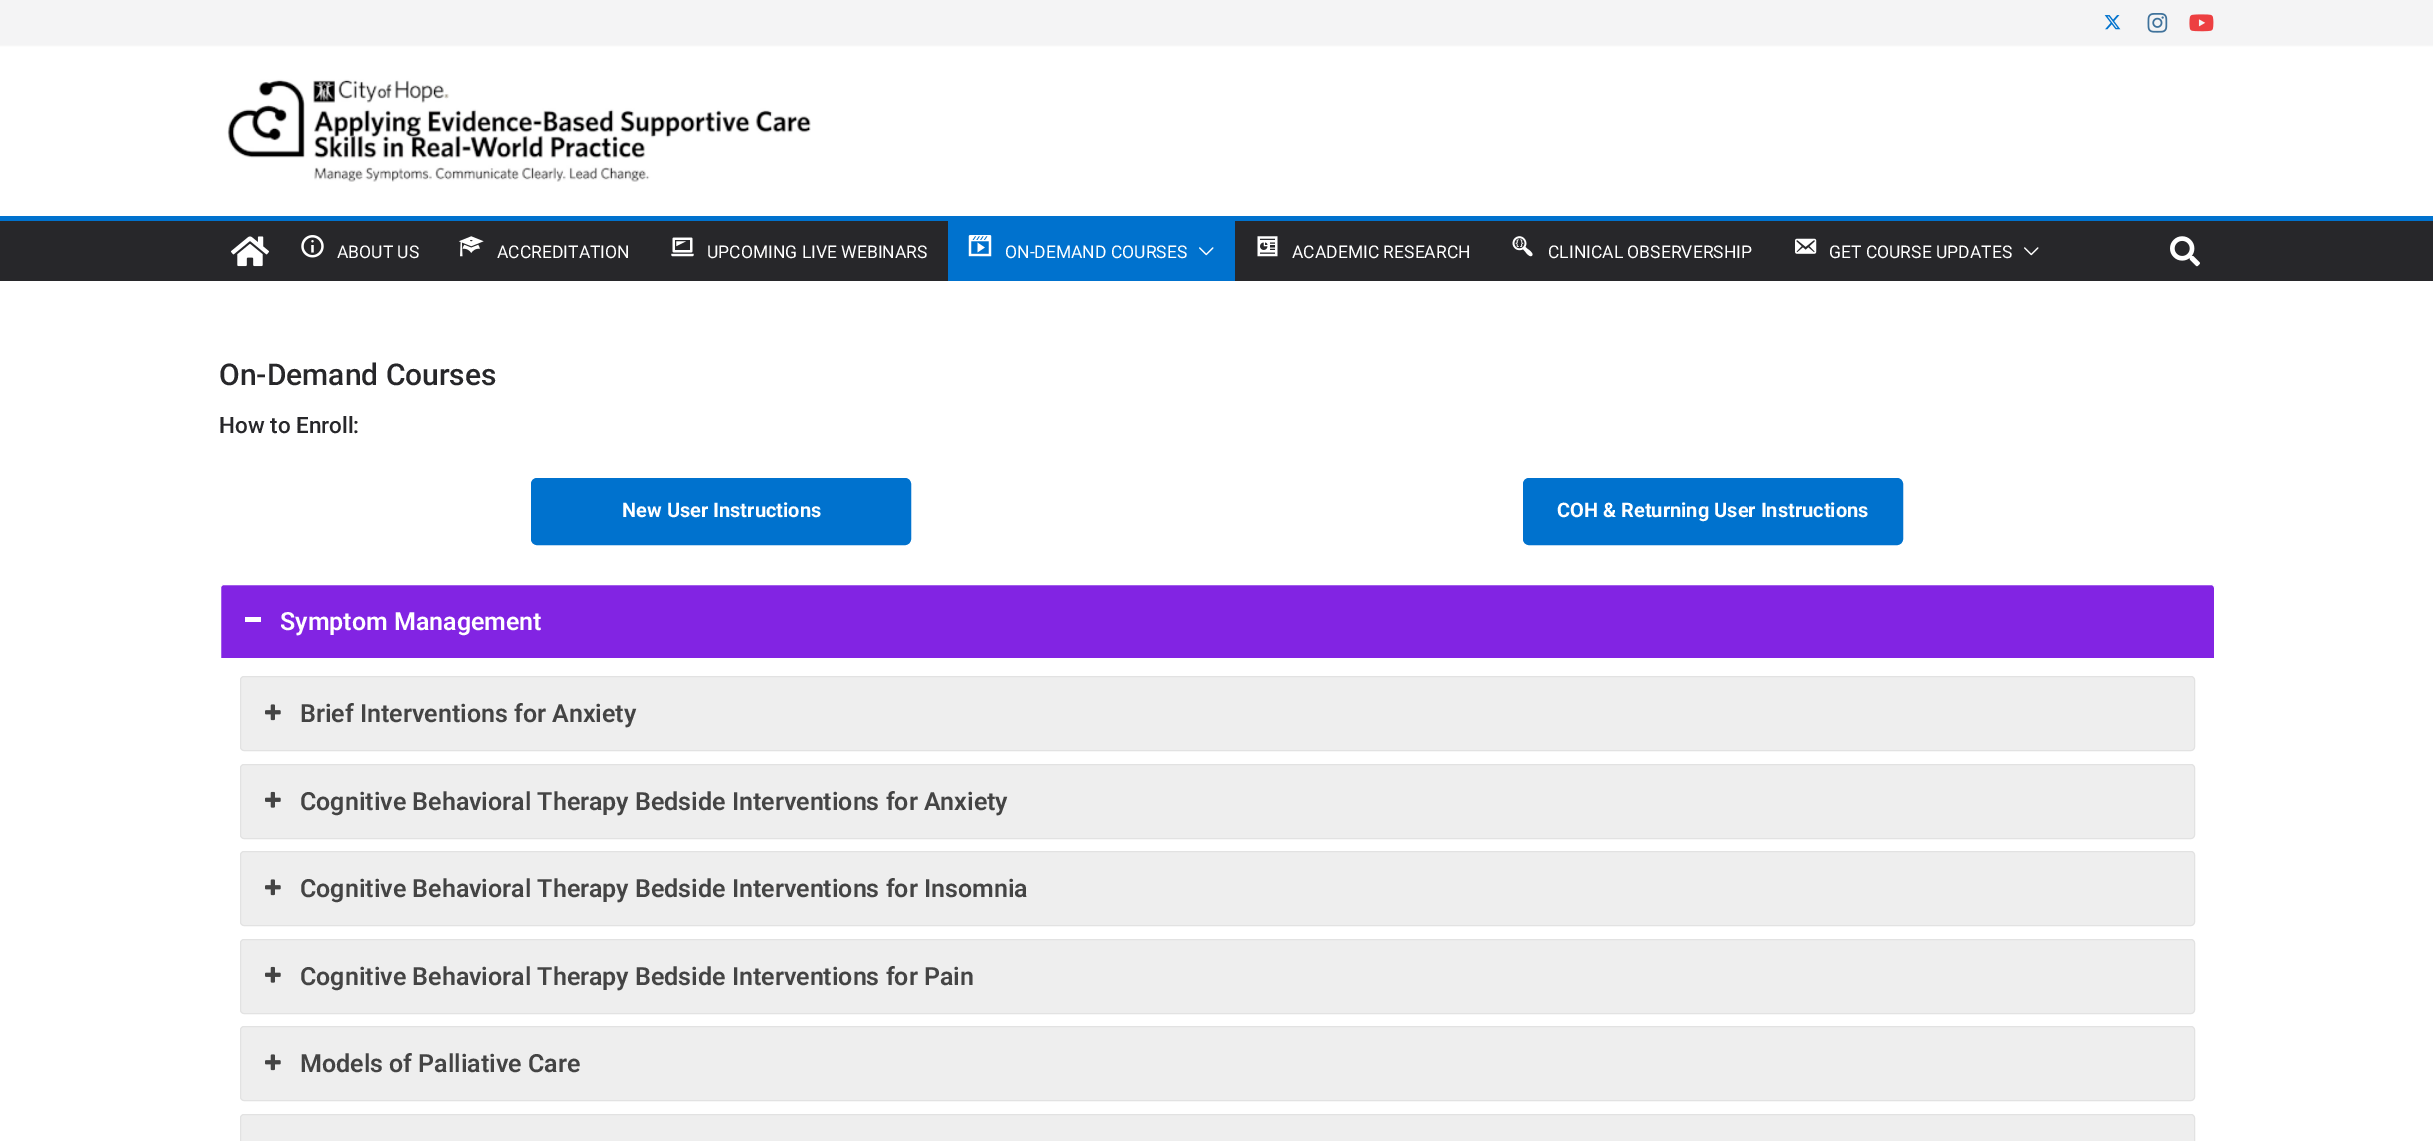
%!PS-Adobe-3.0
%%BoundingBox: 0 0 2433 1141
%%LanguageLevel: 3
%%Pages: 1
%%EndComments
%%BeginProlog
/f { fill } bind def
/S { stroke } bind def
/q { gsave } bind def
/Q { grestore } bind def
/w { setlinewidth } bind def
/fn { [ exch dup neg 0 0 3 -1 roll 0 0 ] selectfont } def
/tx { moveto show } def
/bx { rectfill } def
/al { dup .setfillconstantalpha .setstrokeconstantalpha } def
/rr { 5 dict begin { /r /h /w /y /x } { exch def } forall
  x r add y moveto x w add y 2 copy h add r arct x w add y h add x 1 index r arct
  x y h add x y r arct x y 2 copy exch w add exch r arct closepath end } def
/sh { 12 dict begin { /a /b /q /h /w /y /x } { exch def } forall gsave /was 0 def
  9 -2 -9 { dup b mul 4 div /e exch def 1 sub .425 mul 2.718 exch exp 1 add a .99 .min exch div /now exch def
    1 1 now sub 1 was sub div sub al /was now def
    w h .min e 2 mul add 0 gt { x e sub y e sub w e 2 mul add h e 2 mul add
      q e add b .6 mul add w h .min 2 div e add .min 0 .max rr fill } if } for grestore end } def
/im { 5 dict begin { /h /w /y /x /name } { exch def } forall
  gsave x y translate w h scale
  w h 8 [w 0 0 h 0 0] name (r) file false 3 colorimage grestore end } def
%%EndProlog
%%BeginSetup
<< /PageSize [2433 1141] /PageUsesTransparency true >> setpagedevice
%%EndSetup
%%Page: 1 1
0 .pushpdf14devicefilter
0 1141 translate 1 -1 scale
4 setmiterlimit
1 setgray
0 0 2433 1141 bx
0 setgray
0 0 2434 45 0 1 0.1 sh
0.957 0.957 0.961 setrgbcolor
0 0 2433 45 bx
(image0.raw) 2104 15 17 15 im
(image1.raw) 2147 13 21 20 im
(image2.raw) 2189 14 25 18 im
(image3.raw) 227 79 584 103 im
0.153 0.153 0.165 setrgbcolor
0 221 2433 60 bx
0 0.447 0.808 setrgbcolor
0 216 2433 5 bx
(image4.raw) 231 236 38 31 im
(image5.raw) 301 235 23 23 im
/Roboto-Regular 17.5 fn
1 setgray
(ABOUT US) 337 258 tx
(image6.raw) 458 236 26 21 im
(ACCREDITATION) 497 258 tx
(image7.raw) 671 237 23 20 im
(UPCOMING LIVE WEBINARS) 707 258 tx
0 0.447 0.808 setrgbcolor
948 221 287 60 bx
(image8.raw) 968 235 24 22 im
1 setgray
(ON-DEMAND COURSES) 1005 258 tx
(image9.raw) 1199 247 15 9 im
(image10.raw) 1257 236 21 21 im
(ACADEMIC RESEARCH) 1292 258 tx
(image11.raw) 1512 236 21 21 im
(CLINICAL OBSERVERSHIP) 1548 258 tx
(image12.raw) 1795 238 22 16 im
(GET COURSE UPDATES) 1829 258 tx
(image13.raw) 2024 247 15 9 im
(image14.raw) 2170 236 30 31 im
/Roboto-Medium 30 fn
0.153 0.153 0.165 setrgbcolor
(On-Demand Courses) 219 385 tx
/Roboto-Medium 22.5 fn
(How to Enroll:) 219 433 tx
0 0.447 0.808 setrgbcolor
532.5 479.5 377 64 4.5 rr q f Q
3 w
S
/Roboto-Bold 20 fn
1 setgray
(New User Instructions) 622 517 tx
0 0.447 0.808 setrgbcolor
1524.5 479.5 377 64 4.5 rr q f Q
S
1 setgray
(COH & Returning User Instructions) 1557 517 tx
0.51 0.141 0.89 setrgbcolor
220.5 584.5 1994 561 3.5 rr q f Q
1 setgray
1 w
S
245 617 16 5 bx
/Roboto-SemiBold 25 fn
(Symptom Management) 280 630 tx
221 658 1993 483 bx
0.933 setgray
240.5 676.5 1954 74 3.5 rr q f Q
0.886 setgray
S
(image15.raw) 265 704 16 17 im
0.267 setgray
(Brief Interventions for Anxiety) 300 722 tx
0.933 setgray
240.5 764.5 1954 74 3.5 rr q f Q
0.886 setgray
S
(image16.raw) 265 791 16 17 im
0.267 setgray
(Cognitive Behavioral Therapy Bedside Interventions for Anxiety) 300 810 tx
0.933 setgray
240.5 851.5 1954 74 3.5 rr q f Q
0.886 setgray
S
(image15.raw) 265 879 16 17 im
0.267 setgray
(Cognitive Behavioral Therapy Bedside Interventions for Insomnia) 300 897 tx
0.933 setgray
240.5 939.5 1954 74 3.5 rr q f Q
0.886 setgray
S
(image16.raw) 265 966 16 17 im
0.267 setgray
(Cognitive Behavioral Therapy Bedside Interventions for Pain) 300 985 tx
0.933 setgray
240.5 1026.5 1954 74 3.5 rr q f Q
0.886 setgray
S
(image15.raw) 265 1054 16 17 im
0.267 setgray
(Models of Palliative Care) 300 1072 tx
0.933 setgray
240.5 1114.5 1954 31 3.5 rr q f Q
0.886 setgray
S
.poppdf14devicefilter showpage
%%EOF
